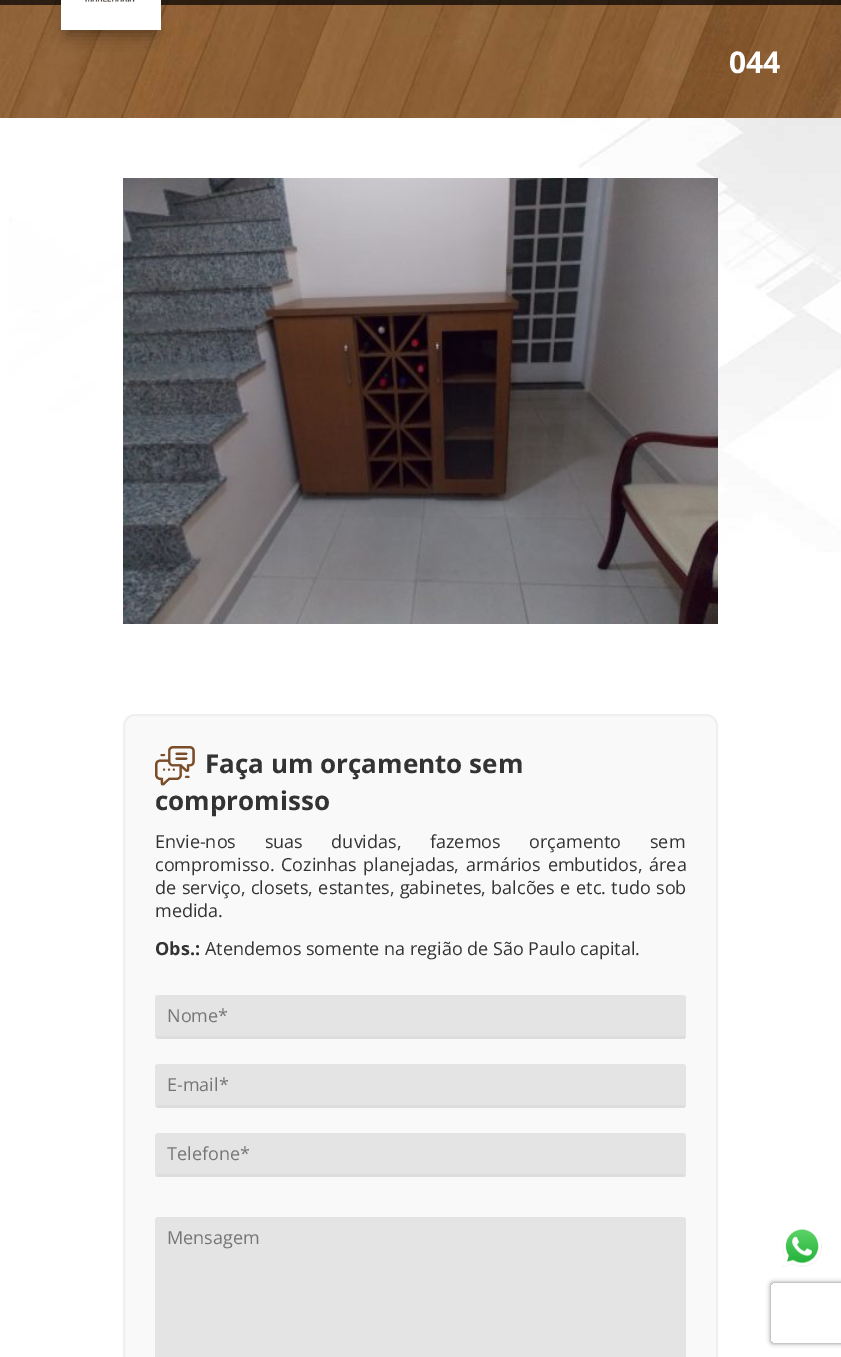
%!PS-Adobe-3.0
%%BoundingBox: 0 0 841 1357
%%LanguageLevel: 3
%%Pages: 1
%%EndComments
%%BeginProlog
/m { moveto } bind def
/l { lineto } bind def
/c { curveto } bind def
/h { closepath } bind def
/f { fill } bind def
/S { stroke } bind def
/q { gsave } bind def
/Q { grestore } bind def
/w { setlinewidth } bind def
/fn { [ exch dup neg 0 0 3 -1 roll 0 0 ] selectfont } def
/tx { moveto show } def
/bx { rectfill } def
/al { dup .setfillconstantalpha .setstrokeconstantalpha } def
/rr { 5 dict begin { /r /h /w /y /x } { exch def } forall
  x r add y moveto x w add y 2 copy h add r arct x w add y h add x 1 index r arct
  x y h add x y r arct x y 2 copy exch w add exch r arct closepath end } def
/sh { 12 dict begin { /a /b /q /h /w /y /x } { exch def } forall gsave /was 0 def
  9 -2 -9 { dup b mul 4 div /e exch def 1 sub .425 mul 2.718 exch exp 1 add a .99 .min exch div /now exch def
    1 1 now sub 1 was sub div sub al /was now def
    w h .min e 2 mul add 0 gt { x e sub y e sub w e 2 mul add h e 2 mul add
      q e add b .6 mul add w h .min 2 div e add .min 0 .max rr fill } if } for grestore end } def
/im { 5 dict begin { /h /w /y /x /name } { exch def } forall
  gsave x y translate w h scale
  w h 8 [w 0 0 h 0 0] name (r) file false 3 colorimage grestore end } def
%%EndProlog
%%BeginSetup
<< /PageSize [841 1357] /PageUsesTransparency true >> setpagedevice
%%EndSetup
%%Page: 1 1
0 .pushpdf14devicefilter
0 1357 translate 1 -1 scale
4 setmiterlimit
1 setgray
0 0 841 1357 bx
(image1.raw) 0 0 841 118 im
0.7 al
0 setgray
0 0 841 5 bx
1 al
67 -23 88 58 0 7.5 0.37 sh
1 setgray
61 0 100 30 bx
(image0.raw) 85 0 50 2 im
/OpenSans-Bold 30 fn
(044) 729 73 tx
(image2.raw) 9 118 832 434 im
(image3.raw) 123 178 595 446 im
0.976 setgray
124 715 593 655 11 rr q f Q
0.937 setgray
2 w
S
(image4.raw) 155 746 40 40 im
/OpenSans-Bold 26 fn
0.2 setgray
(Faça um orçamento sem) 205 773 tx
(compromisso) 155 810 tx
/OpenSans-Regular 18 fn
155 848 m 24 0 32 (Envie-nos suas duvidas, fazemos orçamento sem) widthshow
155 871 m 2 0 32 (compromisso. Cozinhas planejadas, armários embutidos, área) widthshow
155 894 m 0.75 0 32 (de serviço, closets, estantes, gabinetes, balcões e etc. tudo sob) widthshow
(medida.) 155 917 tx
/OpenSans-Bold 18 fn
(Obs.:) 155 955 tx
/OpenSans-Regular 18 fn
(Atendemos somente na região de São Paulo capital.) 205 955 tx
0.894 setgray
155 995 531 44 3 rr f
0.867 setgray
157 1036 528 3 bx
0.459 setgray
(Nome*) 167 1022 tx
0.894 setgray
155 1064 531 44 3 rr f
0.867 setgray
157 1105 528 3 bx
0.459 setgray
(E-mail*) 167 1091 tx
0.894 setgray
155 1133 531 44 3 rr f
0.867 setgray
157 1174 528 3 bx
0.459 setgray
(Telefone*) 167 1160 tx
0.894 setgray
155 1217 531 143 3 rr f
0.459 setgray
(Mensagem) 167 1244 tx
(image5.raw) 782 1229 40 38 im
q
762 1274 m 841 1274 l 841 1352 l 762 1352 l h 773 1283 m 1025 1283 l 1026 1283 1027 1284 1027 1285 c 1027 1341 l 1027 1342 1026 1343 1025 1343 c 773 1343 l 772 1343 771 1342 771 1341 c 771 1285 l 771 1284 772 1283 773 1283 c h eoclip newpath
0.502 setgray
771 1283 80 60 2 2.5 1 sh
Q
.poppdf14devicefilter showpage
%%EOF
